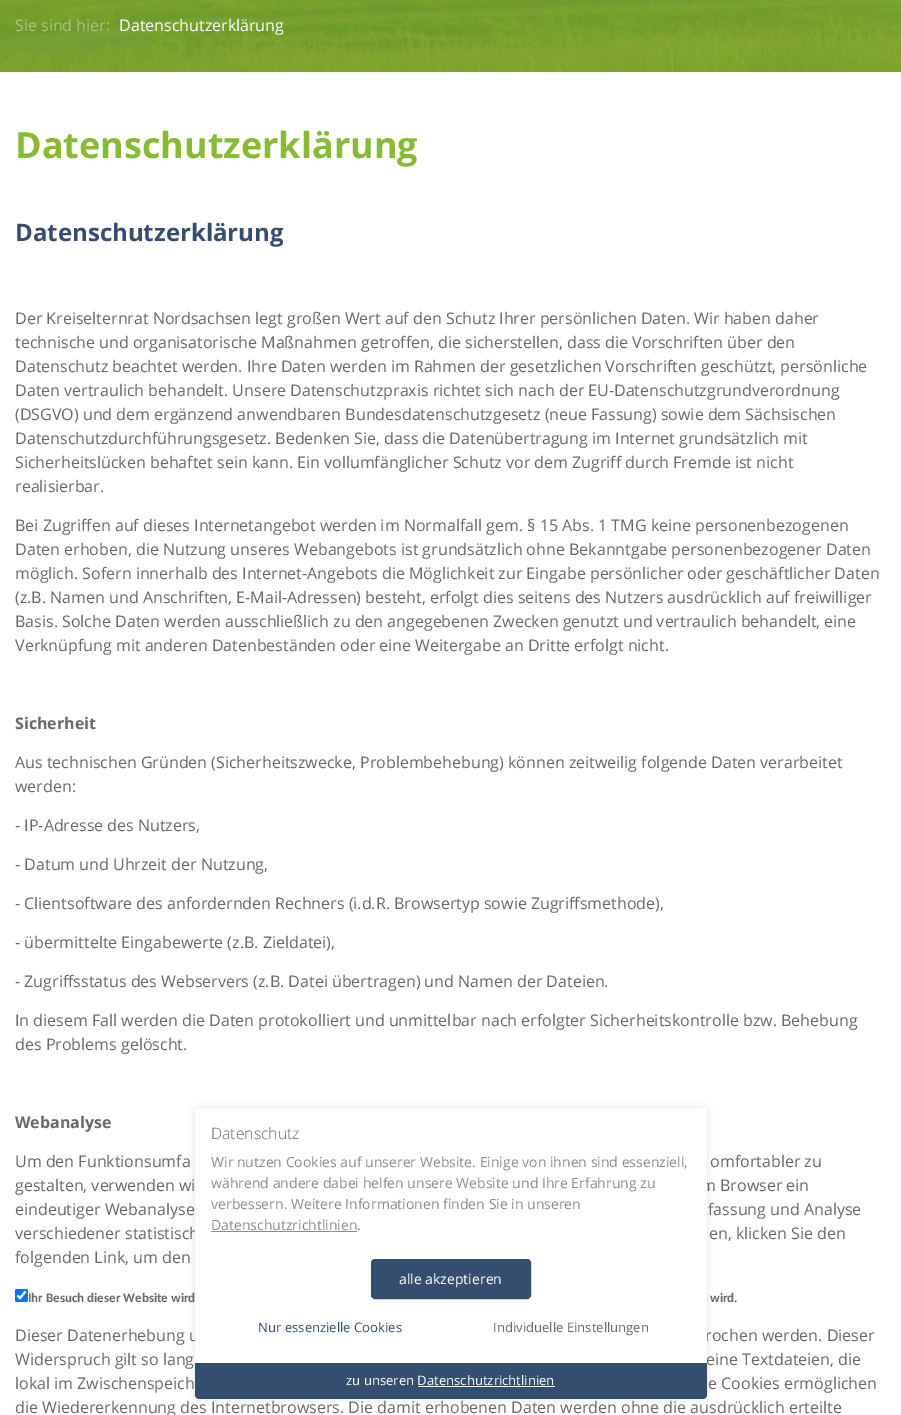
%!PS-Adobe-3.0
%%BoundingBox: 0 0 901 1415
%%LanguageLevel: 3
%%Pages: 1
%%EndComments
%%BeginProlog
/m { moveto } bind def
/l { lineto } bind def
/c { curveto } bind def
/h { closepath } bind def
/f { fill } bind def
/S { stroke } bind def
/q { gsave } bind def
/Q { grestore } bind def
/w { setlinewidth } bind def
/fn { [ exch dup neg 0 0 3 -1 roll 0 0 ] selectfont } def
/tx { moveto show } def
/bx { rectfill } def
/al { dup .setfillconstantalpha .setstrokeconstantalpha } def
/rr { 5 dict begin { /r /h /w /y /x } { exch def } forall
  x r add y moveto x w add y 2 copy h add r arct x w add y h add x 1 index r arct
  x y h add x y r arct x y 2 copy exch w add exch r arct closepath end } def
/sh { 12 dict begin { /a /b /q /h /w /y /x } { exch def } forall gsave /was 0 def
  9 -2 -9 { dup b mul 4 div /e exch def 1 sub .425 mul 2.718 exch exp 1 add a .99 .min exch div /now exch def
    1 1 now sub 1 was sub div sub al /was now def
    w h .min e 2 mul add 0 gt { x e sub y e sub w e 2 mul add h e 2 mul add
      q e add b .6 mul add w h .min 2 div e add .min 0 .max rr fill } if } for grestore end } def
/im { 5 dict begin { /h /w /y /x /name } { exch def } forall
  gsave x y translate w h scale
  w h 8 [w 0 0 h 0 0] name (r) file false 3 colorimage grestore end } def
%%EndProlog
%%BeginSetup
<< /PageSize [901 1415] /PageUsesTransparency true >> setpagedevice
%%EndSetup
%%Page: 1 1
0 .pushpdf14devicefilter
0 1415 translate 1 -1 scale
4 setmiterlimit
1 setgray
0 0 901 1415 bx
(image0.raw) 0 0 901 72 im
/OpenSans-Regular 16 fn
0.667 0.765 0.502 setrgbcolor
(Sie sind hier) 15 31 tx
(:) 106 31 tx
1 setgray
(Datenschutzerklärung) 119 31 tx
/OpenSans-Bold 36 fn
0.533 0.733 0.208 setrgbcolor
(Datenschutzerklärung) 15 158 tx
/OpenSans-Bold 24 fn
0.208 0.302 0.431 setrgbcolor
(Datenschutzerklärung) 15 241 tx
/OpenSans-Regular 16 fn
0.404 0.408 0.408 setrgbcolor
(Der Kreiselternrat Nordsachsen legt großen Wert auf den Schutz Ihrer persönlichen Daten. Wir haben daher) 15 324 tx
(technische und organisatorische Maßnahmen getroffen, die sicherstellen, dass die Vorschriften über den) 15 348 tx
(Datenschutz beachtet werden. Ihre Daten werden im Rahmen der gesetzlichen Vorschriften geschützt, persönliche) 15 372 tx
(Daten vertraulich behandelt. Unsere Datenschutzpraxis richtet sich nach der EU-Datenschutzgrundverordnung) 15 396 tx
(\(DSGVO\) und dem ergänzend anwendbaren Bundesdatenschutzgesetz \(neue Fassung\) sowie dem Sächsischen) 15 420 tx
(Datenschutzdurchführungsgesetz. Bedenken Sie, dass die Datenübertragung im Internet grundsätzlich mit) 15 444 tx
(Sicherheitslücken behaftet sein kann. Ein vollumfänglicher Schutz vor dem Zugriff durch Fremde ist nicht) 15 468 tx
(realisierbar.) 15 492 tx
(Bei Zugriffen auf dieses Internetangebot werden im Normalfall gem. § 15 Abs. 1 TMG keine personenbezogenen) 15 531 tx
(Daten erhoben, die Nutzung unseres Webangebots ist grundsätzlich ohne Bekanntgabe personenbezogener Daten) 15 555 tx
(möglich. Sofern innerhalb des Internet-Angebots die Möglichkeit zur Eingabe persönlicher oder geschäftlicher Daten) 15 579 tx
(\(z.B. Namen und Anschriften, E-Mail-Adressen\) besteht, erfolgt dies seitens des Nutzers ausdrücklich auf freiwilliger) 15 603 tx
(Basis. Solche Daten werden ausschließlich zu den angegebenen Zwecken genutzt und vertraulich behandelt, eine) 15 627 tx
(Verknüpfung mit anderen Datenbeständen oder eine Weitergabe an Dritte erfolgt nicht.) 15 651 tx
/OpenSans-Bold 16 fn
(Sicherheit) 15 729 tx
/OpenSans-Regular 16 fn
(Aus technischen Gründen \(Sicherheitszwecke, Problembehebung\) können zeitweilig folgende Daten verarbeitet) 15 768 tx
(werden:) 15 792 tx
(- IP-Adresse des Nutzers,) 15 831 tx
(- Datum und Uhrzeit der Nutzung,) 15 870 tx
(- Clientsoftware des anfordernden Rechners \(i.d.R. Browsertyp sowie Zugriffsmethode\),) 15 909 tx
(- übermittelte Eingabewerte \(z.B. Zieldatei\),) 15 948 tx
(- Zugriffsstatus des Webservers \(z.B. Datei übertragen\) und Namen der Dateien.) 15 987 tx
(In diesem Fall werden die Daten protokolliert und unmittelbar nach erfolgter Sicherheitskontrolle bzw. Behebung) 15 1026 tx
(des Problems gelöscht.) 15 1050 tx
/OpenSans-Bold 16 fn
(Webanalyse) 15 1128 tx
/OpenSans-Regular 16 fn
(Um den Funktionsumfa) 15 1167 tx
(omfortabler zu) 710 1167 tx
(gestalten, verwenden wi) 15 1191 tx
(m Browser ein) 701 1191 tx
(eindeutiger Webanalyse) 15 1215 tx
(fassung und Analyse) 708 1215 tx
(verschiedener statistisch) 15 1239 tx
(en, klicken Sie den) 709 1239 tx
(folgenden Link, um den) 15 1263 tx
0 0.459 1 setrgbcolor
15 1289 13 13 2 rr f
1 setgray
2.1 w
17.5 1295.5 m 20 1298 l 25.5 1291.5 l S
/Carlito-Bold 13 fn
0.404 0.408 0.408 setrgbcolor
(Ihr Besuch dieser Website wird) 28 1302 tx
(wird.) 710 1302 tx
/OpenSans-Regular 16 fn
(Dieser Datenerhebung u) 15 1341 tx
(rochen werden. Dieser) 705 1341 tx
(Widerspruch gilt so lang) 15 1365 tx
(eine Textdateien, die) 706 1365 tx
(lokal im Zwischenspeich) 15 1389 tx
(e Cookies ermöglichen) 708 1389 tx
(die Wiedererkennung des Internetbrowsers. Die damit erhobenen Daten werden ohne die ausdrücklich erteilte) 15 1413 tx
0.388 setgray
195 1108 512 291 4 4 0.2 sh
1 setgray
195 1108 512 291 4 rr f
/OpenSans-Light 15.75 fn
0.404 0.408 0.408 setrgbcolor
(Datenschutz) 211 1139 tx
/OpenSans-Regular 14 fn
0.549 setgray
(Wir nutzen Cookies auf unserer Website. Einige von ihnen sind essenziell,) 211 1167 tx
(während andere dabei helfen unsere Website und Ihre Erfahrung zu) 211 1188 tx
(verbessern. Weitere Informationen finden Sie in unseren) 211 1209 tx
(Datenschutzrichtlinien) 211 1230 tx
211 1231 146 1 bx
(.) 357 1230 tx
0.208 0.302 0.431 setrgbcolor
371.5 1259.5 159 39 3.5 rr q f Q
1 w
S
1 setgray
(alle akzeptieren) 399 1284 tx
/OpenSans-Regular 13.1 fn
0.208 0.302 0.431 setrgbcolor
(Nur essenzielle Cookies) 258 1332 tx
0.404 0.408 0.408 setrgbcolor
(Individuelle Einstellungen) 493 1332 tx
0.208 0.302 0.431 setrgbcolor
195 1363 m 707 1363 l 707 1395 l 707 1397 705 1399 703 1399 c 199 1399 l 197 1399 195 1397 195 1395 c h f
1 setgray
(zu unseren Datenschutzrichtlinien) 346 1385 tx
418 1386 137 1 bx
.poppdf14devicefilter showpage
%%EOF
